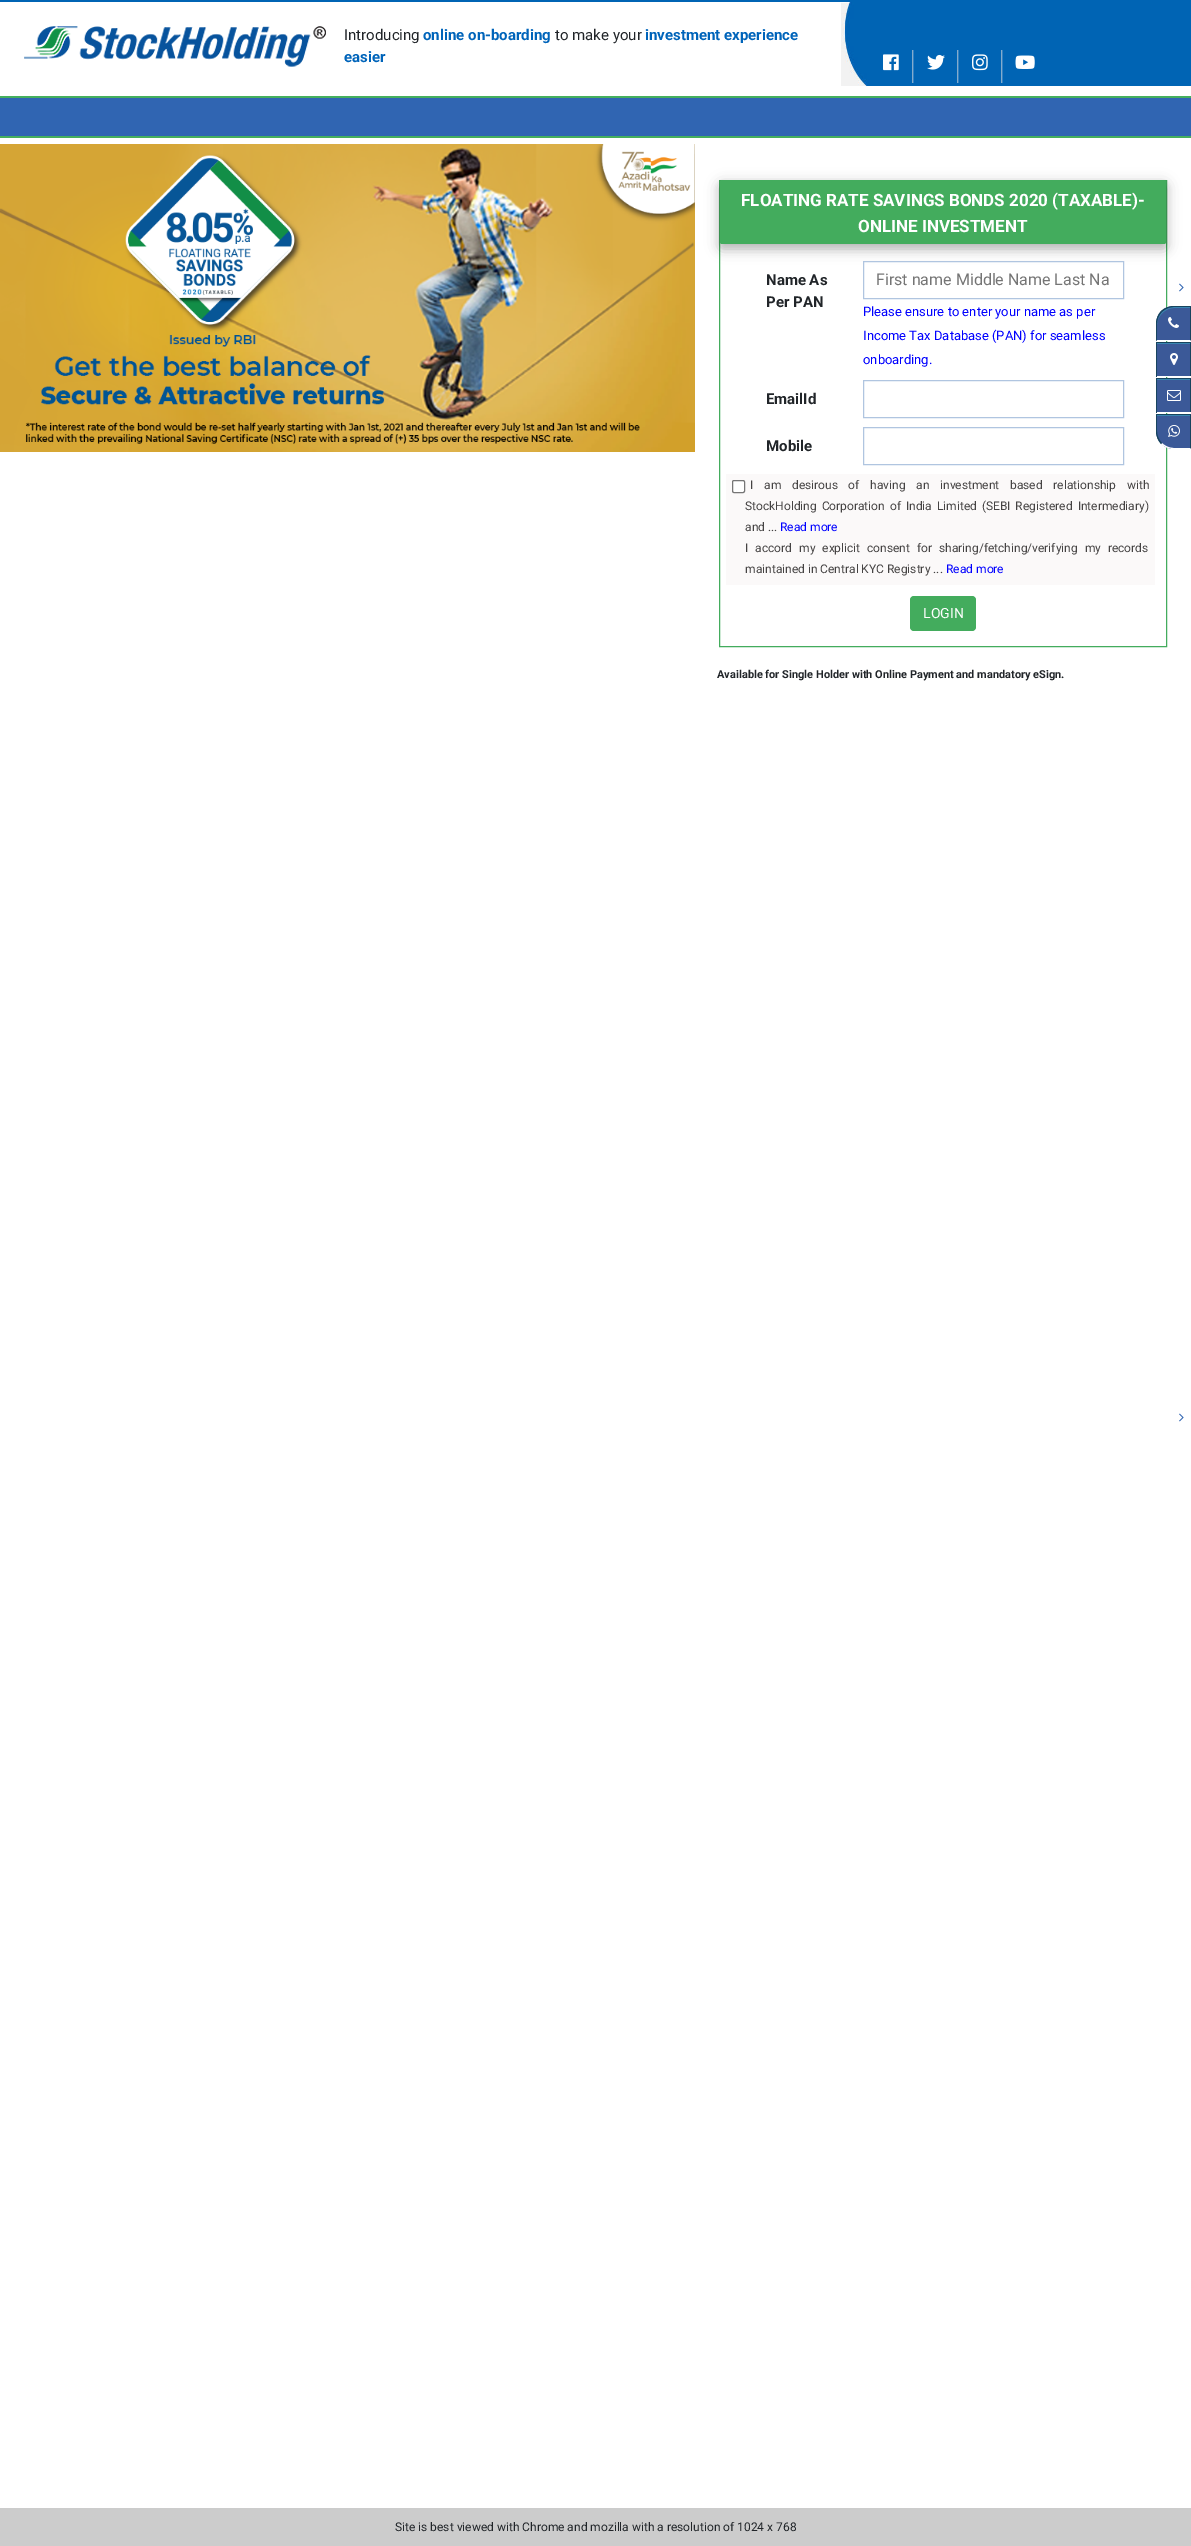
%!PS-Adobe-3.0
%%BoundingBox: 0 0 1191 2546
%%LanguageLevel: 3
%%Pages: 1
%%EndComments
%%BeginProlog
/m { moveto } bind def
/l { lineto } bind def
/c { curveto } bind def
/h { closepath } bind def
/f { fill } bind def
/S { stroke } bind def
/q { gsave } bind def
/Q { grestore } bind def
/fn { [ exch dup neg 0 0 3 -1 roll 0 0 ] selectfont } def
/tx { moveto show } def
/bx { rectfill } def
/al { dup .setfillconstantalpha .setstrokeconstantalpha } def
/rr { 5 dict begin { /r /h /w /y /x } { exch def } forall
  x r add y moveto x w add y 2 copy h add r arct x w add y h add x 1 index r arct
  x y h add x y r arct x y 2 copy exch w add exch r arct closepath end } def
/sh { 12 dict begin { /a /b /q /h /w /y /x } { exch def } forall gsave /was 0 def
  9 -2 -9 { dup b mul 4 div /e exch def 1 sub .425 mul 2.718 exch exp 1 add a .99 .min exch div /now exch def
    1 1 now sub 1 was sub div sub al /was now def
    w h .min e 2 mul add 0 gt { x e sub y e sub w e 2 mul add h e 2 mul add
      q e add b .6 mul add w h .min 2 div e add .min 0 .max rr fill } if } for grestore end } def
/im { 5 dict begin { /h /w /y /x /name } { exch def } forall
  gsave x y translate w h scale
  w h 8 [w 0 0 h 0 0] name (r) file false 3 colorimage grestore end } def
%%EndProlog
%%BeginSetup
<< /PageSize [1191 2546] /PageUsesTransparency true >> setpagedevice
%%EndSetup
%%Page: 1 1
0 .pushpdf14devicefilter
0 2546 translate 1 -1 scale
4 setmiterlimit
1 setgray
0 0 1191 2546 bx
0 0.392 0.706 setrgbcolor
0 0 1191 2 bx
(image0.raw) 24 26 302 41 im
/Roboto-Regular 15 fn
0.129 0.145 0.161 setrgbcolor
(Introducing) 344 40 tx
/Roboto-Bold 15 fn
0 0.392 0.729 setrgbcolor
(online on-boarding) 423 40 tx
/Roboto-Regular 15 fn
0.129 0.145 0.161 setrgbcolor
(to make your) 555 40 tx
/Roboto-Bold 15 fn
0 0.392 0.729 setrgbcolor
(investment experience) 645 40 tx
(easier) 344 62 tx
(image1.raw) 841 2 350 84 im
(image2.raw) 883 54 16 17 im
(image3.raw) 912 50 2 33 im
(image4.raw) 927 54 18 16 im
(image3.raw) 957 50 2 33 im
(image5.raw) 972 54 16 17 im
(image3.raw) 1001 50 2 33 im
(image6.raw) 1015 55 20 14 im
0.188 0.396 0.698 setrgbcolor
0 98 1191 38 bx
0.271 0.686 0.365 setrgbcolor
0 96 1191 2 bx
0 136 1191 2 bx
(image7.raw) 0 144 695 308 im
0.263 0.675 0.365 setrgbcolor
719.5 180.5 447 466 rectstroke
0 setgray
720 184 446 64 2 7.5 0.15 sh
720 185 446 64 2 5.5 0.18 sh
0.263 0.675 0.365 setrgbcolor
720 180 446 64 2 rr f
/Roboto-Bold 17 fn
1 setgray
(FLOATING RATE SAVINGS BONDS 2020 \(TAXABLE\)-) 741 206 tx
(ONLINE INVESTMENT) 858 232 tx
/Roboto-Bold 15 fn
0.129 0.145 0.161 setrgbcolor
(Name As) 766 285 tx
(Per PAN) 766 307 tx
0.69 0.773 0.878 setrgbcolor
863.5 261.5 260 37 rectstroke
/Roboto-Regular 16 fn
0.459 setgray
(First name Middle Name Last Na) 876 285 tx
/Roboto-Regular 13 fn
0 0 1 setrgbcolor
(Please ensure to enter your name as per) 863 316 tx
(Income Tax Database \(PAN\) for seamless) 863 340 tx
(onboarding.) 863 364 tx
/Roboto-Bold 15 fn
0.129 0.145 0.161 setrgbcolor
(EmailId) 766 404 tx
0.69 0.773 0.878 setrgbcolor
863.5 380.5 260 37 rectstroke
0.129 0.145 0.161 setrgbcolor
(Mobile) 766 451 tx
0.69 0.773 0.878 setrgbcolor
863.5 427.5 260 37 rectstroke
0.984 0.976 0.976 setrgbcolor
726 474 429 111 bx
1 setgray
732.5 480.5 12 12 1.5 rr q f Q
0.463 setgray
S
/Roboto-Regular 12 fn
0.271 0.263 0.263 setrgbcolor
750 489 m 7.75 0 32 (I am desirous of having an investment based relationship with) widthshow
745 510 m 2 0 32 (StockHolding Corporation of India Limited \(SEBI Registered Intermediary\)) widthshow
(and ...) 745 531 tx
0 0 1 setrgbcolor
(Read more) 780 531 tx
0.271 0.263 0.263 setrgbcolor
745 552 m 4 0 32 (I accord my explicit consent for sharing/fetching/verifying my records) widthshow
(maintained in Central KYC Registry ...) 745 573 tx
0 0 1 setrgbcolor
(Read more) 946 573 tx
0.263 0.675 0.365 setrgbcolor
910 596 66 35 4 rr f
/Roboto-Regular 14 fn
1 setgray
(LOGIN) 923 618 tx
/Roboto-Bold 11 fn
0.129 0.145 0.161 setrgbcolor
(Available for Single Holder with Online Payment and mandatory eSign.) 717 678 tx
(image8.raw) 1179 283 5 9 im
0.231 0.349 0.596 setrgbcolor
1174 306 m 1191 306 l 1191 341 l 1156 341 l 1156 324 l 1156 314 1164 306 1174 306 c h f
0.224 0.522 0.694 setrgbcolor
1174 308 m 1190 308 l 1190 307 l 1174 307 l 1164.5 307 1157 314.5 1157 324 c 1157 325 l 1157 316 1165 308 1174 308 c h f
0.09 0.267 0.369 setrgbcolor
1174 306 m 1169 306 1164.5 308 1161 311 c 1162 312 l 1165 309 1169 307 1174 307 c 1190 307 l 1191 306 l h f
1191 306 m 1190 307 l 1190 340 l 1191 341 l h f
1 setgray
1191 341 m 1190 340 l 1157 340 l 1156 341 l h f
0.09 0.267 0.369 setrgbcolor
1156 341 m 1157 340 l 1157 324 l 1157 319 1159 315 1162 312 c 1161 311 l 1158 314.5 1156 319 1156 324 c h f
(image9.raw) 1168 317 11 11 im
0.231 0.349 0.596 setrgbcolor
1157 344 33 32 bx
0.224 0.522 0.694 setrgbcolor
1157 343 33 1 bx
0.09 0.267 0.369 setrgbcolor
1156 342 35 1 bx
1190 342 1 35 bx
1 setgray
1166 376 25 1 bx
0.09 0.267 0.369 setrgbcolor
1156 342 1 35 bx
(image10.raw) 1170 353 8 12 im
0.231 0.349 0.596 setrgbcolor
1157 380 33 32 bx
0.224 0.522 0.694 setrgbcolor
1157 379 33 1 bx
0.09 0.267 0.369 setrgbcolor
1156 378 35 1 bx
1190 378 1 35 bx
1 setgray
1166 412 25 1 bx
0.09 0.267 0.369 setrgbcolor
1156 378 1 35 bx
(image11.raw) 1167 390 14 11 im
0.231 0.349 0.596 setrgbcolor
1156 414 m 1191 414 l 1191 449 l 1174 449 l 1164 449 1156 441 1156 431 c h f
0.224 0.522 0.694 setrgbcolor
1157 415 33 1 bx
0.09 0.267 0.369 setrgbcolor
1156 414 m 1157 415 l 1190 415 l 1191 414 l h f
1191 414 m 1190 415 l 1190 448 l 1191 449 l h f
1 setgray
1191 449 m 1190 448 l 1174 448 l 1169 448 1165 446 1162 443 c 1161 444 l 1164.5 447 1169 449 1174 449 c h f
0.09 0.267 0.369 setrgbcolor
1157 415 m 1156 414 l 1156 431 l 1156 436 1158 440.5 1161 444 c 1162 443 l 1159 440 1157 436 1157 431 c h f
(image12.raw) 1168 425 12 12 im
(image8.raw) 1179 1413 5 9 im
0.8 setgray
0 2508 1191 38 bx
/Roboto-Regular 12 fn
0.129 0.145 0.161 setrgbcolor
(Site is best viewed with Chrome and mozilla with a resolution of 1024 x 768) 395 2531 tx
.poppdf14devicefilter showpage
%%EOF
